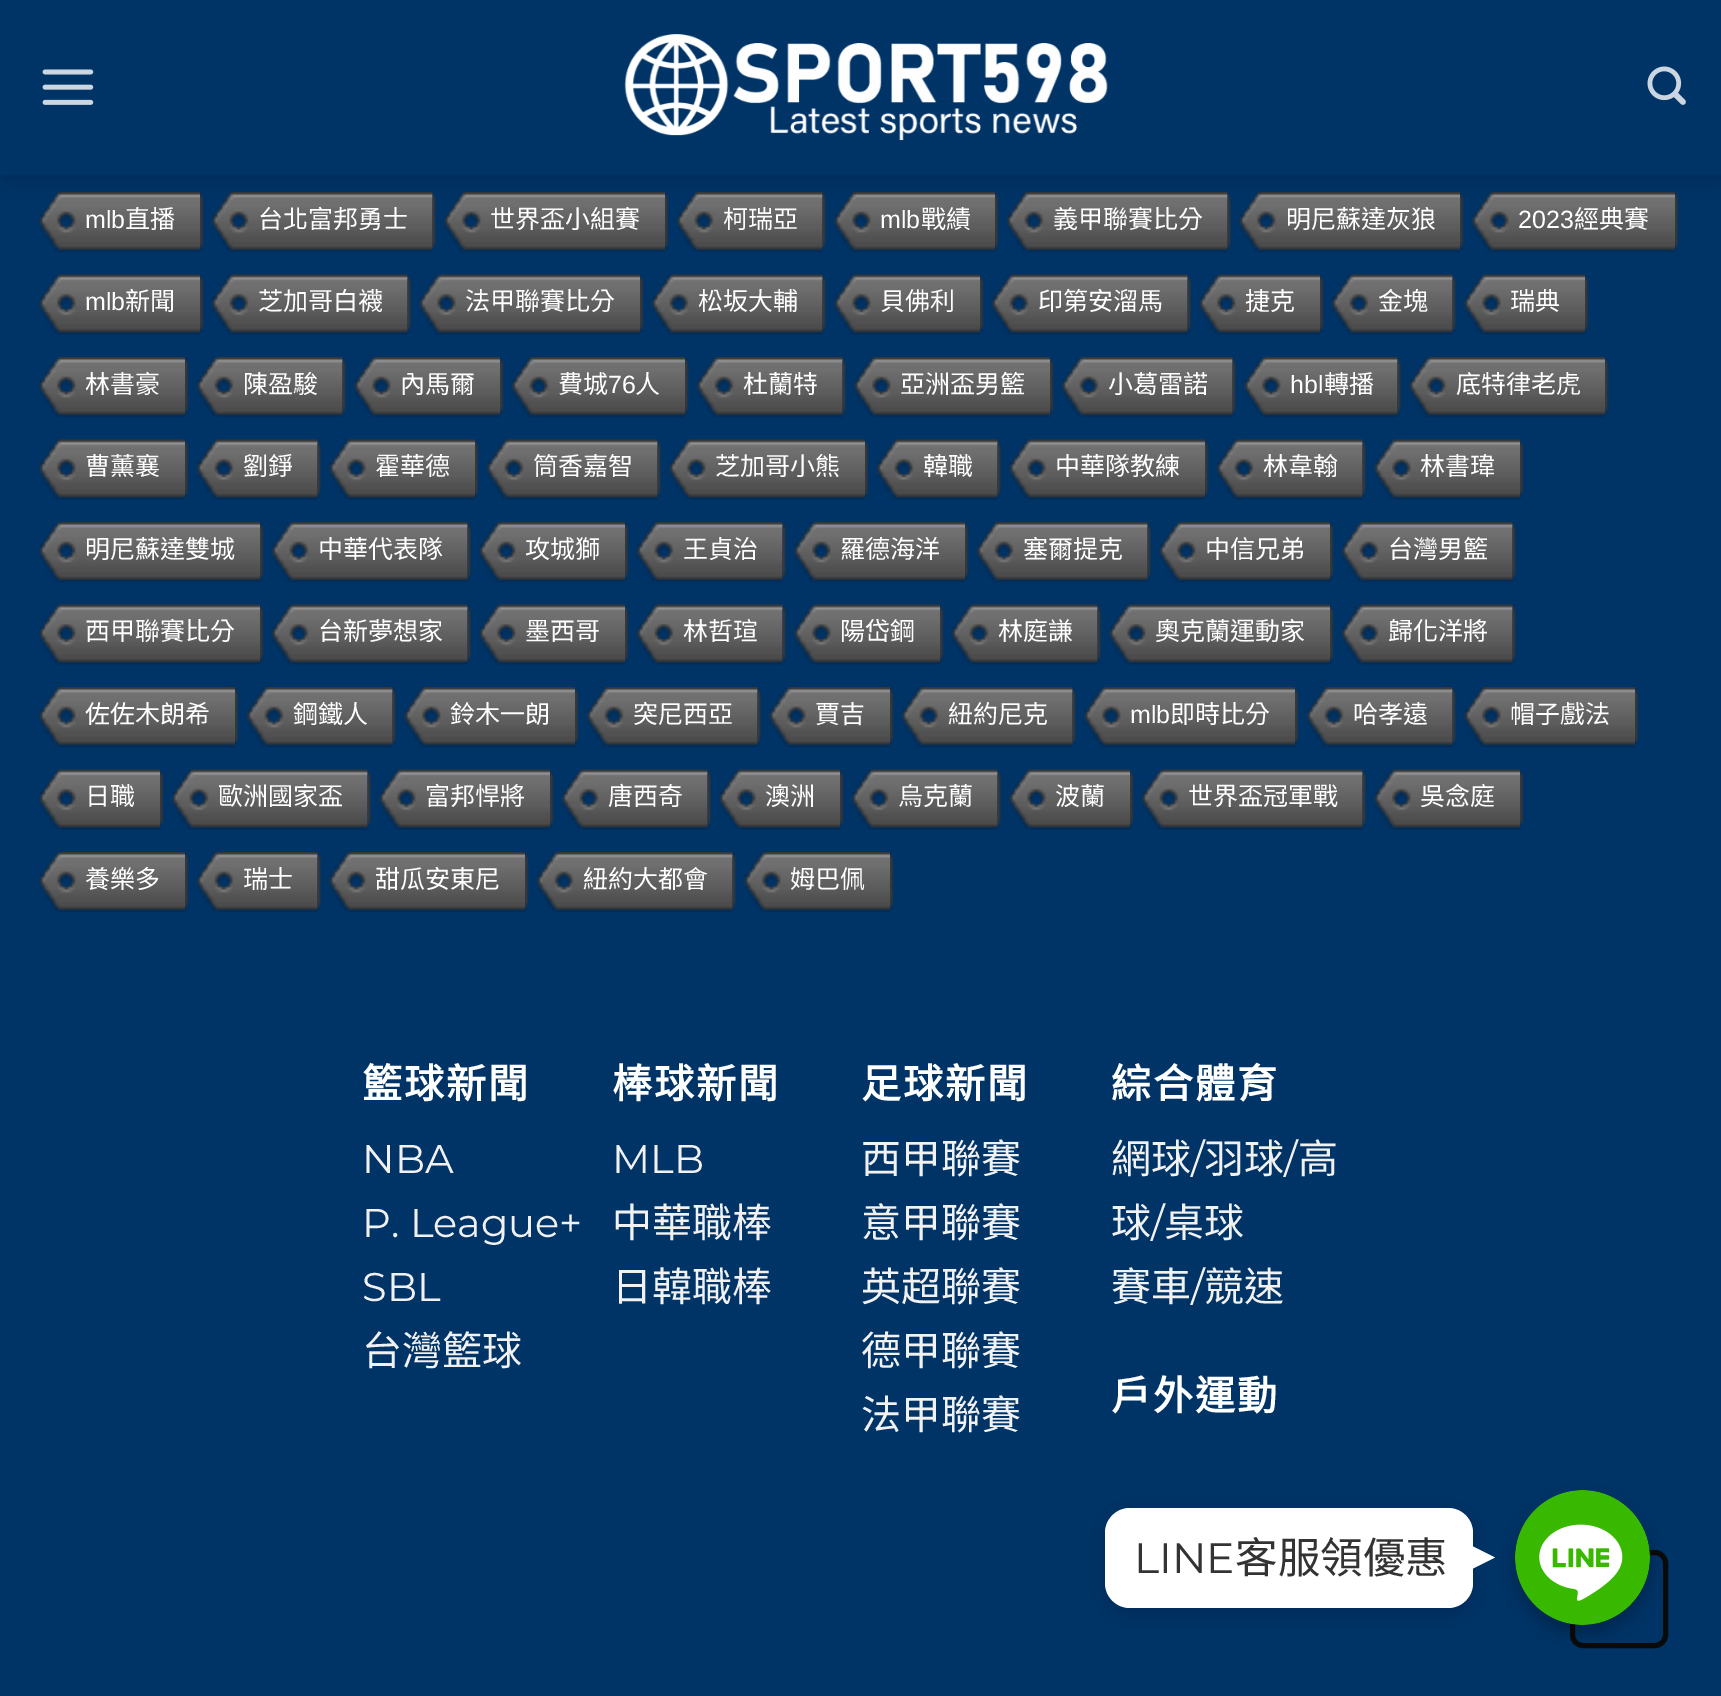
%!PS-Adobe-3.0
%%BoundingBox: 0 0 1721 1696
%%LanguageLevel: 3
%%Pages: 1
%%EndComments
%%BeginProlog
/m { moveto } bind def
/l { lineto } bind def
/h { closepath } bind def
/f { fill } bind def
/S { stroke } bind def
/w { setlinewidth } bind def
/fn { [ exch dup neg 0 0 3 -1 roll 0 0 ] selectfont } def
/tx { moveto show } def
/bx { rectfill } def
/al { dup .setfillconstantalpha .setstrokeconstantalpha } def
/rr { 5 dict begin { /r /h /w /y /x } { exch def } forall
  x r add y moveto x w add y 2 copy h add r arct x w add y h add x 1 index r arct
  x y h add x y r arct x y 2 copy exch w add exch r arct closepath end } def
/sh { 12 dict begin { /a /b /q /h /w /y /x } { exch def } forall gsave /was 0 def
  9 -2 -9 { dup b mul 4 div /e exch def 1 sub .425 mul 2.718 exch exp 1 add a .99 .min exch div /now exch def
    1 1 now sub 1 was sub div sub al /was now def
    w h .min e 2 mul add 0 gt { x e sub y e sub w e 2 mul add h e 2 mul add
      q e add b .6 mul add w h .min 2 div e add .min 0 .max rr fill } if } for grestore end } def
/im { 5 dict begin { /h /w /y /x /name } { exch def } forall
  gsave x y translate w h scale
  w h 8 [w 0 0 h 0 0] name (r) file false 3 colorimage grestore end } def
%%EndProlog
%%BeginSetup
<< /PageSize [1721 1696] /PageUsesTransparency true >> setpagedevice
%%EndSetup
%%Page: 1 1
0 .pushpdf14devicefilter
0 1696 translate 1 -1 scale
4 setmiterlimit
0 0.2 0.4 setrgbcolor
0 0 1721 1696 bx
(image3.raw) 39 192 161 61 im
(image4.raw) 200 193 4 57 im
(image5.raw) 212 192 221 61 im
(image6.raw) 432 193 4 57 im
(image7.raw) 444 192 221 61 im
(image4.raw) 665 193 4 57 im
(image8.raw) 677 192 146 61 im
(image6.raw) 822 193 4 57 im
(image3.raw) 834 192 161 61 im
(image9.raw) 995 193 4 57 im
(image10.raw) 1007 192 221 61 im
(image6.raw) 1227 193 4 57 im
(image11.raw) 1239 192 221 61 im
(image4.raw) 1460 193 4 57 im
(image12.raw) 1472 192 203 61 im
(image4.raw) 1675 193 4 57 im
0 setgray
3 3 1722 175 0 12.5 0.15 sh
0 0.2 0.4 setrgbcolor
0 0 1721 175 bx
(image0.raw) 42 69 52 36 im
(image1.raw) 624 34 484 107 im
(image2.raw) 1647 66 39 39 im
/LiberationSans-Regular 25 fn
1 setgray
(mlb) 85 228 tx
/NotoSansCJKTC-Regular 25 fn
(直播) 125 228 tx
(台北富邦勇士) 258 228 tx
(世界盃小組賽) 490 228 tx
(柯瑞亞) 723 228 tx
/LiberationSans-Regular 25 fn
(mlb) 880 228 tx
/NotoSansCJKTC-Regular 25 fn
(戰績) 921 228 tx
(義甲聯賽比分) 1053 228 tx
(明尼蘇達灰狼) 1286 228 tx
/LiberationSans-Regular 25 fn
(2023) 1518 228 tx
/NotoSansCJKTC-Regular 25 fn
(經典賽) 1574 228 tx
(image13.raw) 39 274 161 61 im
/LiberationSans-Regular 25 fn
(mlb) 85 310 tx
/NotoSansCJKTC-Regular 25 fn
(新聞) 125 310 tx
(image14.raw) 200 276 4 57 im
(image15.raw) 212 274 196 61 im
(芝加哥白襪) 258 310 tx
(image16.raw) 407 276 4 57 im
(image17.raw) 419 274 221 61 im
(法甲聯賽比分) 465 310 tx
(image14.raw) 640 276 4 57 im
(image18.raw) 652 274 171 61 im
(松坂大輔) 698 310 tx
(image16.raw) 822 276 4 57 im
(image19.raw) 834 274 146 61 im
(貝佛利) 880 310 tx
(image20.raw) 980 276 4 57 im
(image21.raw) 992 274 196 61 im
(印第安溜馬) 1038 310 tx
(image16.raw) 1187 276 4 57 im
(image22.raw) 1199 274 121 61 im
(捷克) 1245 310 tx
(image14.raw) 1320 276 4 57 im
(image23.raw) 1332 274 121 61 im
(金塊) 1378 310 tx
(image16.raw) 1452 276 4 57 im
(image22.raw) 1464 274 121 61 im
(瑞典) 1510 310 tx
(image14.raw) 1585 276 4 57 im
(image24.raw) 39 357 146 61 im
(林書豪) 85 393 tx
(image4.raw) 185 358 4 57 im
(image25.raw) 197 357 146 61 im
(陳盈駿) 243 393 tx
(image6.raw) 342 358 4 57 im
(image26.raw) 354 357 146 61 im
(內馬爾) 400 393 tx
(image9.raw) 500 358 4 57 im
(image27.raw) 512 357 173 61 im
(費城) 558 393 tx
/LiberationSans-Regular 25 fn
(76) 608 393 tx
/NotoSansCJKTC-Regular 25 fn
(人) 635 393 tx
(image9.raw) 685 358 4 57 im
(image8.raw) 697 357 146 61 im
(杜蘭特) 743 393 tx
(image6.raw) 842 358 4 57 im
(image28.raw) 854 357 196 61 im
(亞洲盃男籃) 900 393 tx
(image9.raw) 1050 358 4 57 im
(image29.raw) 1062 357 171 61 im
(小葛雷諾) 1108 393 tx
(image6.raw) 1232 358 4 57 im
(image30.raw) 1244 357 154 61 im
/LiberationSans-Regular 25 fn
(hbl) 1290 393 tx
/NotoSansCJKTC-Regular 25 fn
(轉播) 1324 393 tx
(image6.raw) 1397 358 4 57 im
(image28.raw) 1409 357 196 61 im
(底特律老虎) 1456 393 tx
(image4.raw) 1605 358 4 57 im
(image31.raw) 39 439 146 61 im
(曹薰襄) 85 475 tx
(image14.raw) 185 441 4 57 im
(image23.raw) 197 439 121 61 im
(劉錚) 243 475 tx
(image16.raw) 317 441 4 57 im
(image31.raw) 329 439 146 61 im
(霍華德) 375 475 tx
(image20.raw) 475 441 4 57 im
(image32.raw) 487 439 171 61 im
(筒香嘉智) 533 475 tx
(image16.raw) 657 441 4 57 im
(image33.raw) 669 439 196 61 im
(芝加哥小熊) 715 475 tx
(image14.raw) 865 441 4 57 im
(image23.raw) 877 439 121 61 im
(韓職) 923 475 tx
(image16.raw) 997 441 4 57 im
(image34.raw) 1009 439 196 61 im
(中華隊教練) 1055 475 tx
(image14.raw) 1205 441 4 57 im
(image35.raw) 1217 439 146 61 im
(林韋翰) 1263 475 tx
(image16.raw) 1362 441 4 57 im
(image31.raw) 1374 439 146 61 im
(林書瑋) 1420 475 tx
(image14.raw) 1520 441 4 57 im
(image36.raw) 39 522 221 61 im
(明尼蘇達雙城) 85 558 tx
(image37.raw) 260 523 4 57 im
(image38.raw) 272 522 196 61 im
(中華代表隊) 318 558 tx
(image39.raw) 467 523 4 57 im
(image40.raw) 479 522 146 61 im
(攻城獅) 525 558 tx
(image37.raw) 625 523 4 57 im
(image41.raw) 637 522 146 61 im
(王貞治) 683 558 tx
(image39.raw) 782 523 4 57 im
(image42.raw) 794 522 171 61 im
(羅德海洋) 840 558 tx
(image43.raw) 965 523 4 57 im
(image44.raw) 977 522 171 61 im
(塞爾提克) 1023 558 tx
(image39.raw) 1147 523 4 57 im
(image45.raw) 1159 522 171 61 im
(中信兄弟) 1205 558 tx
(image37.raw) 1330 523 4 57 im
(image46.raw) 1342 522 171 61 im
(台灣男籃) 1388 558 tx
(image39.raw) 1512 523 4 57 im
(image47.raw) 39 604 221 61 im
(西甲聯賽比分) 85 640 tx
(image14.raw) 260 606 4 57 im
(image21.raw) 272 604 196 61 im
(台新夢想家) 318 640 tx
(image16.raw) 467 606 4 57 im
(image48.raw) 479 604 146 61 im
(墨西哥) 525 640 tx
(image14.raw) 625 606 4 57 im
(image35.raw) 637 604 146 61 im
(林哲瑄) 683 640 tx
(image16.raw) 782 606 4 57 im
(image31.raw) 794 604 146 61 im
(陽岱鋼) 840 640 tx
(image20.raw) 940 606 4 57 im
(image49.raw) 952 604 146 61 im
(林庭謙) 998 640 tx
(image16.raw) 1097 606 4 57 im
(image17.raw) 1109 604 221 61 im
(奧克蘭運動家) 1155 640 tx
(image14.raw) 1330 606 4 57 im
(image18.raw) 1342 604 171 61 im
(歸化洋將) 1388 640 tx
(image16.raw) 1512 606 4 57 im
(image28.raw) 39 687 196 61 im
(佐佐木朗希) 85 723 tx
(image4.raw) 235 688 4 57 im
(image50.raw) 247 687 146 61 im
(鋼鐵人) 293 723 tx
(image6.raw) 392 688 4 57 im
(image51.raw) 404 687 171 61 im
(鈴木一朗) 450 723 tx
(image9.raw) 575 688 4 57 im
(image52.raw) 587 687 171 61 im
(突尼西亞) 633 723 tx
(image6.raw) 757 688 4 57 im
(image53.raw) 769 687 121 61 im
(賈吉) 815 723 tx
(image4.raw) 890 688 4 57 im
(image54.raw) 902 687 171 61 im
(紐約尼克) 948 723 tx
(image6.raw) 1072 688 4 57 im
(image55.raw) 1084 687 211 61 im
/LiberationSans-Regular 25 fn
(mlb) 1130 723 tx
/NotoSansCJKTC-Regular 25 fn
(即時比分) 1170 723 tx
(image9.raw) 1295 688 4 57 im
(image56.raw) 1307 687 146 61 im
(哈孝遠) 1353 723 tx
(image6.raw) 1452 688 4 57 im
(image57.raw) 1464 687 171 61 im
(帽子戲法) 1510 723 tx
(image4.raw) 1635 688 4 57 im
(image22.raw) 39 769 121 61 im
(日職) 85 805 tx
(image14.raw) 160 771 4 57 im
(image15.raw) 172 769 196 61 im
(歐洲國家盃) 218 805 tx
(image16.raw) 367 771 4 57 im
(image58.raw) 379 769 171 61 im
(富邦悍將) 425 805 tx
(image20.raw) 550 771 4 57 im
(image49.raw) 562 769 146 61 im
(唐西奇) 608 805 tx
(image16.raw) 707 771 4 57 im
(image22.raw) 719 769 121 61 im
(澳洲) 765 805 tx
(image20.raw) 840 771 4 57 im
(image35.raw) 852 769 146 61 im
(烏克蘭) 898 805 tx
(image16.raw) 997 771 4 57 im
(image59.raw) 1009 769 121 61 im
(波蘭) 1055 805 tx
(image20.raw) 1130 771 4 57 im
(image60.raw) 1142 769 221 61 im
(世界盃冠軍戰) 1188 805 tx
(image16.raw) 1362 771 4 57 im
(image31.raw) 1374 769 146 61 im
(吳念庭) 1420 805 tx
(image14.raw) 1520 771 4 57 im
(image24.raw) 39 852 146 61 im
(養樂多) 85 888 tx
(image4.raw) 185 853 4 57 im
(image61.raw) 197 852 121 61 im
(瑞士) 243 888 tx
(image6.raw) 317 853 4 57 im
(image28.raw) 329 852 196 61 im
(甜瓜安東尼) 375 888 tx
(image9.raw) 525 853 4 57 im
(image62.raw) 537 852 196 61 im
(紐約大都會) 583 888 tx
(image6.raw) 732 853 4 57 im
(image24.raw) 744 852 146 61 im
(姆巴佩) 790 888 tx
(image4.raw) 890 853 4 57 im
/NotoSansCJKTC-Bold 40 fn
362 1098 m 2 0 (籃球新聞) ashow
/Montserrat-Regular 40 fn
0.945 setgray
(NBA) 362 1173 tx
(P. League+) 362 1237 tx
(SBL) 362 1301 tx
/NotoSansCJKTC-Regular 40 fn
(台灣籃球) 362 1365 tx
/NotoSansCJKTC-Bold 40 fn
1 setgray
612 1098 m 2 0 (棒球新聞) ashow
/Montserrat-Regular 40 fn
0.945 setgray
(MLB) 612 1173 tx
/NotoSansCJKTC-Regular 40 fn
(中華職棒) 612 1237 tx
(日韓職棒) 612 1301 tx
/NotoSansCJKTC-Bold 40 fn
1 setgray
861 1098 m 2 0 (足球新聞) ashow
/NotoSansCJKTC-Regular 40 fn
0.945 setgray
(西甲聯賽) 861 1173 tx
(意甲聯賽) 861 1237 tx
(英超聯賽) 861 1301 tx
(德甲聯賽) 861 1365 tx
(法甲聯賽) 861 1429 tx
/NotoSansCJKTC-Bold 40 fn
1 setgray
1111 1098 m 2 0 (綜合體育) ashow
/NotoSansCJKTC-Regular 40 fn
0.945 setgray
(網球) 1111 1173 tx
/Montserrat-Regular 40 fn
(/) 1191 1173 tx
/NotoSansCJKTC-Regular 40 fn
(羽球) 1204 1173 tx
/Montserrat-Regular 40 fn
(/) 1284 1173 tx
/NotoSansCJKTC-Regular 40 fn
(高) 1298 1173 tx
(球) 1111 1237 tx
/Montserrat-Regular 40 fn
(/) 1151 1237 tx
/NotoSansCJKTC-Regular 40 fn
(桌球) 1164 1237 tx
(賽車) 1111 1301 tx
/Montserrat-Regular 40 fn
(/) 1191 1301 tx
/NotoSansCJKTC-Regular 40 fn
(競速) 1204 1301 tx
/NotoSansCJKTC-Bold 40 fn
1 setgray
1111 1410 m 2 0 (戶外運動) ashow
0.039 setgray
5 w
1572.5 1552.5 93 93 10.5 rr S
(image63.raw) 1630 1602 3 3 im
0 setgray
1105 1513 368 100 25 9.5 0.15 sh
1 setgray
1105 1508 368 100 25 rr f
/Montserrat-Regular 42.5 fn
0.2 setgray
(LINE) 1134 1573 tx
/NotoSansCJKTC-Regular 42.5 fn
(客服領優惠) 1235 1573 tx
0 setgray
1515 1498 135 135 67.5 7.5 0.25 sh
1 setgray
1470 1570 m 1470 1545 l 1495 1557.5 l h f
(image64.raw) 1515 1490 135 135 im
.poppdf14devicefilter showpage
%%EOF
